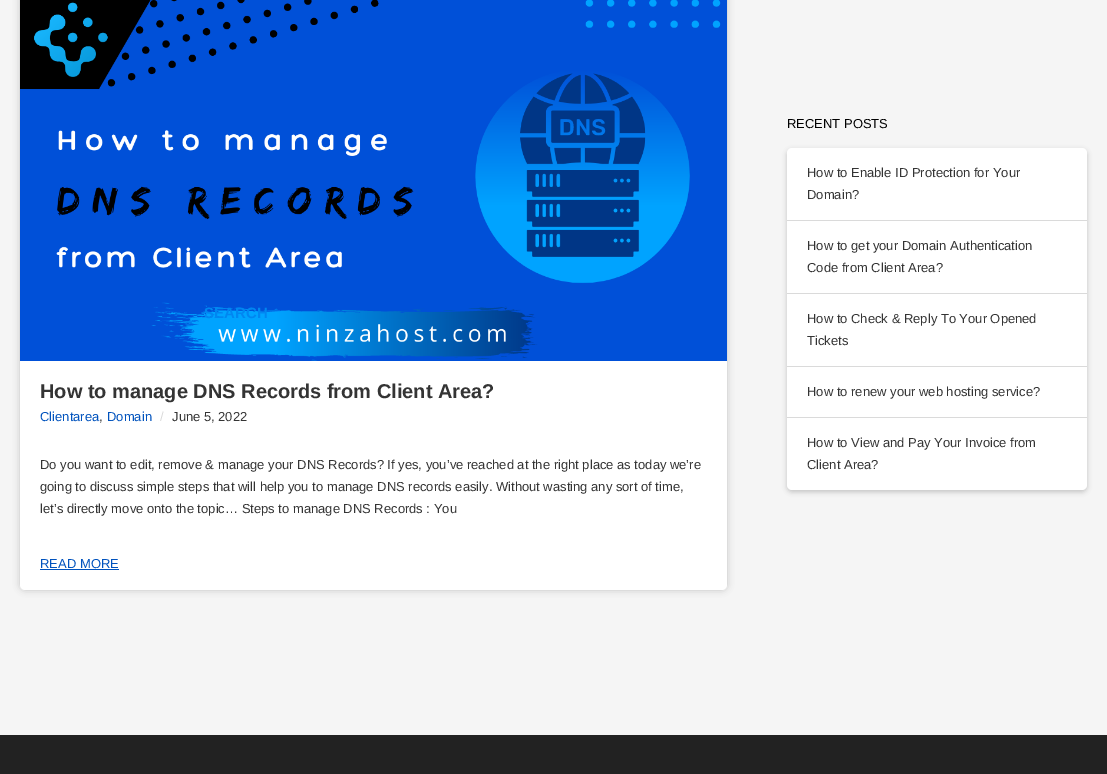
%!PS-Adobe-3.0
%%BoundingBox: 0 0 1107 774
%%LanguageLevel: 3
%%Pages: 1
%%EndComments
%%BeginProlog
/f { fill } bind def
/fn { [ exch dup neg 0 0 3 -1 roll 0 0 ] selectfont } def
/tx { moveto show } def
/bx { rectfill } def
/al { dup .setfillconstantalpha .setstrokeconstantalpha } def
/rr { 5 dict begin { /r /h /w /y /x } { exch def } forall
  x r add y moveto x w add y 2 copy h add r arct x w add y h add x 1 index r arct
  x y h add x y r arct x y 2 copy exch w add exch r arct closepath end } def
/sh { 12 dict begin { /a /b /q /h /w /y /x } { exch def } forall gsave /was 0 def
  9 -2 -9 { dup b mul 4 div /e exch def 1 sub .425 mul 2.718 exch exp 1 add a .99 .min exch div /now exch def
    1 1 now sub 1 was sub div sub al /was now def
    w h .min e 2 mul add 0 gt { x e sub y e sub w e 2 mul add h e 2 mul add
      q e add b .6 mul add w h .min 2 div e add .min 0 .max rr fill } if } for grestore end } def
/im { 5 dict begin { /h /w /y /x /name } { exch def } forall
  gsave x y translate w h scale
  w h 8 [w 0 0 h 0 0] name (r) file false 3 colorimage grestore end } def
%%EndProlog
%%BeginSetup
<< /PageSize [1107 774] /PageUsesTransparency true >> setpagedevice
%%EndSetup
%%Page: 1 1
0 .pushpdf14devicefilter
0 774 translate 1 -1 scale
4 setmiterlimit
0.961 setgray
0 0 1107 774 bx
0 setgray
20 -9 707 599 5 3.5 0.2 sh
1 setgray
20 -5 707 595 5 rr f
(image0.raw) 20 0 707 361 im
/LiberationSans-Bold 20 fn
0.204 setgray
(How to manage DNS Records from Client Area?) 40 398 tx
/LiberationSans-Regular 13 fn
0 0.322 0.741 setrgbcolor
(Clientarea) 40 421 tx
0.204 setgray
(,) 99 421 tx
0 0.322 0.741 setrgbcolor
(Domain) 107 421 tx
0.855 setgray
(/) 160 421 tx
0.204 setgray
(June 5, 2022) 172 421 tx
(Do you want to edit, remove & manage your DNS Records? If yes, you’ve reached at the right place as today we’re) 40 469 tx
(going to discuss simple steps that will help you to manage DNS records easily. Without wasting any sort of time,) 40 491 tx
(let’s directly move onto the topic… Steps to manage DNS Records : You) 40 513 tx
0 0.322 0.741 setrgbcolor
(READ MORE) 40 568 tx
40 569 79 1 bx
0 setgray
(RECENT POSTS) 787 128 tx
787 150 300 342 5 2.5 0.2 sh
1 setgray
787 148 300 342 5 rr f
0.855 setgray
787 220 300 1 bx
0.204 setgray
(How to Enable ID Protection for Your) 807 177 tx
(Domain?) 807 199 tx
0.855 setgray
787 293 300 1 bx
0.204 setgray
(How to get your Domain Authentication) 807 250 tx
(Code from Client Area?) 807 272 tx
0.855 setgray
787 366 300 1 bx
0.204 setgray
(How to Check & Reply To Your Opened) 807 323 tx
(Tickets) 807 345 tx
0.855 setgray
787 417 300 1 bx
0.204 setgray
(How to renew your web hosting service?) 807 396 tx
(How to View and Pay Your Invoice from) 807 447 tx
(Client Area?) 807 469 tx
/LiberationSans-Bold 15 fn
0 0.525 0.945 setrgbcolor
(SEARCH) 204 318 tx
0.133 setgray
0 735 1107 39 bx
.poppdf14devicefilter showpage
%%EOF
